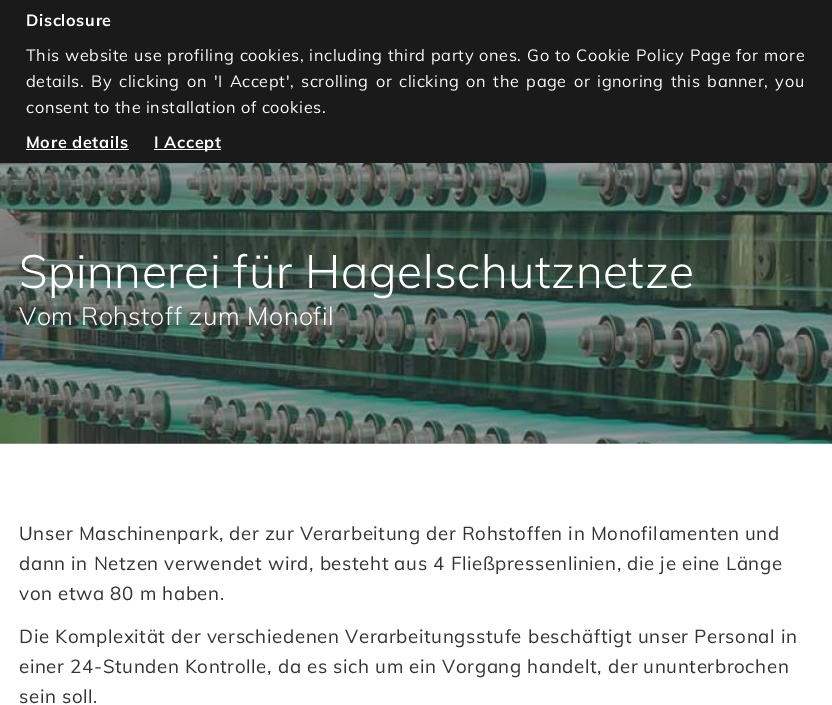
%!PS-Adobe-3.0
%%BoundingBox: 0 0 832 705
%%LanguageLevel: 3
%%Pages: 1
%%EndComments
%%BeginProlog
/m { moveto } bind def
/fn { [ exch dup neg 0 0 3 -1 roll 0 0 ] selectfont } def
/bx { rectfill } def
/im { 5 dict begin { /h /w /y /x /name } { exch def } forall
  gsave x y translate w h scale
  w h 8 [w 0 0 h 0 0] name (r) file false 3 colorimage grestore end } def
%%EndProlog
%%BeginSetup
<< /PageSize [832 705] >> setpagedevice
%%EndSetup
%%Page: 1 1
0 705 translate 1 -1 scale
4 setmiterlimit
1 setgray
0 0 832 705 bx
0.102 setgray
0 0 832 163 bx
/Muli-Bold 16.25 fn
1 setgray
26 26 m 0.62 0 (Disclosure) ashow
/Muli-Regular 16.25 fn
26 61 m 0.5 0 32 0.62 0 (This website use profiling cookies, including third party ones. Go to Cookie Policy Page for more) awidthshow
26 87 m 2.1 0 32 0.62 0 (details. By clicking on 'I Accept', scrolling or clicking on the page or ignoring this banner, you) awidthshow
26 113 m 0.62 0 (consent to the installation of cookies.) ashow
/Muli-Bold 16.25 fn
26 148 m 0.62 0 (More details) ashow
26 149 103 1 bx
154 149 67 1 bx
154 148 m 0.62 0 (I Accept) ashow
(image0.raw) 0 163 832 281 im
/Muli-Light 46.25 fn
19 288 m 0.62 0 (Spinnerei für Hagelschutznetze) ashow
/Muli-Light 25 fn
19 325 m 0.62 0 (Vom Rohstoff zum Monofil) ashow
/Muli-Regular 18.75 fn
0.2 setgray
19 540 m 0.62 0 (Unser Maschinenpark, der zur Verarbeitung der Rohstoffen in Monofilamenten und) ashow
19 570 m 0.62 0 (dann in Netzen verwendet wird, besteht aus 4 Fließpressenlinien, die je eine Länge) ashow
19 600 m 0.62 0 (von etwa 80 m haben.) ashow
19 643 m 0.62 0 (Die Komplexität der verschiedenen Verarbeitungsstufe beschäftigt unser Personal in) ashow
19 673 m 0.62 0 (einer 24-Stunden Kontrolle, da es sich um ein Vorgang handelt, der ununterbrochen) ashow
19 703 m 0.62 0 (sein soll.) ashow
showpage
%%EOF
